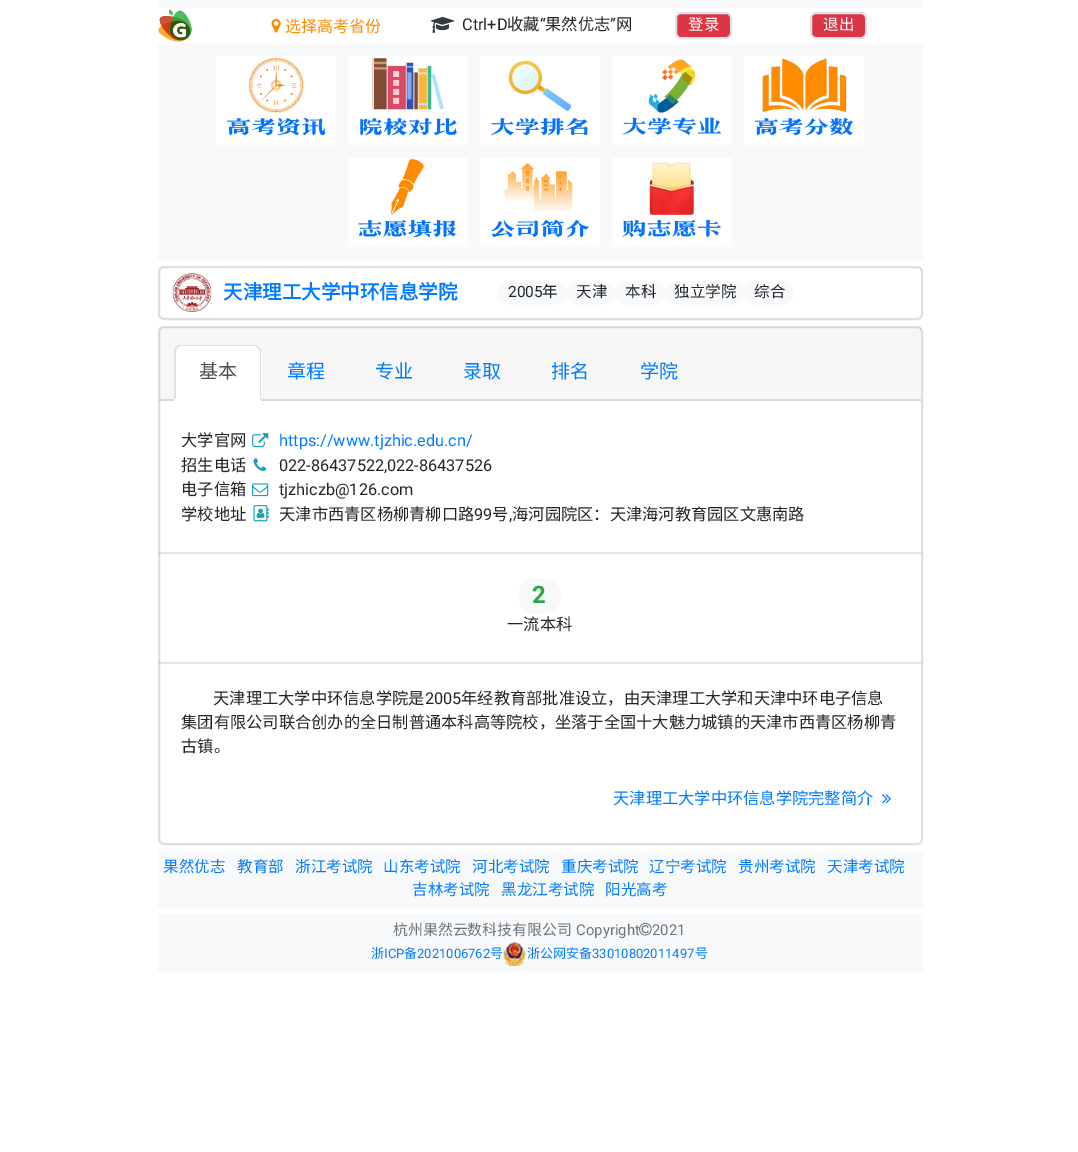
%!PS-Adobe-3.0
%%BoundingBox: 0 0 1078 1152
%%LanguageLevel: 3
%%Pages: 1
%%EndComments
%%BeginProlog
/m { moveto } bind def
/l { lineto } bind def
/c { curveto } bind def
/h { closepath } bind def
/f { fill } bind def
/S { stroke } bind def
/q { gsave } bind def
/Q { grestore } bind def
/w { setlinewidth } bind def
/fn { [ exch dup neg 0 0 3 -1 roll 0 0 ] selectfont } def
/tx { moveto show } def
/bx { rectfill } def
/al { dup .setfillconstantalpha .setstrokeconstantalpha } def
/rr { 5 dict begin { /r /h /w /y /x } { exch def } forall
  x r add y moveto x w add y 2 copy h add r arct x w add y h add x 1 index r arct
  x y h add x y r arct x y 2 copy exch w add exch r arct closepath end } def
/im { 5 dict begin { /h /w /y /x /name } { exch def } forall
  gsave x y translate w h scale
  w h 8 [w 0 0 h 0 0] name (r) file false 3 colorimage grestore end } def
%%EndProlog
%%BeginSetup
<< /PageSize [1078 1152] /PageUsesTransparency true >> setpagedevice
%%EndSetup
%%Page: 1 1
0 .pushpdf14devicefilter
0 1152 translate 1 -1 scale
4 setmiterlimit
1 setgray
0 0 1078 1152 bx
0.973 0.976 0.98 setrgbcolor
158 0 765 8 bx
(image0.raw) 158 9 34 33 im
(image1.raw) 271 18 10 15 im
/NotoSansCJKSC-Regular 16 fn
1 0.549 0 setrgbcolor
(选择高考省份) 285 32 tx
(image2.raw) 431 16 24 17 im
/Roboto-Regular 16.25 fn
0.129 0.145 0.161 setrgbcolor
(Ctrl+D) 462 30 tx
/NotoSansCJKSC-Regular 16.25 fn
(收藏) 507 30 tx
/Roboto-Regular 16.25 fn
(“) 540 30 tx
/NotoSansCJKSC-Regular 16.25 fn
(果然优志) 545 30 tx
/Roboto-Regular 16.25 fn
(”) 610 30 tx
/NotoSansCJKSC-Regular 16.25 fn
(网) 616 30 tx
0.863 0.208 0.271 setrgbcolor
676 13 55 25 5 rr q f Q
0.871 0.886 0.902 setrgbcolor
2 w
S
/NotoSansCJKSC-Regular 15.5 fn
1 setgray
(登录) 688 30 tx
0.863 0.208 0.271 setrgbcolor
811 13 55 25 5 rr q f Q
0.871 0.886 0.902 setrgbcolor
S
1 setgray
(退出) 823 30 tx
0.973 0.976 0.98 setrgbcolor
158 44 765 216 bx
(image3.raw) 216 56 120 89 im
(image4.raw) 348 56 120 89 im
(image5.raw) 480 56 120 89 im
(image6.raw) 612 56 120 89 im
(image7.raw) 744 56 120 89 im
(image8.raw) 348 158 120 89 im
(image9.raw) 480 158 120 89 im
(image10.raw) 612 158 120 89 im
0.875 setgray
159 267 763 52 5 rr S
(image11.raw) 172 273 40 39 im
/NotoSansCJKSC-Bold 19.5 fn
0 0.482 1 setrgbcolor
(天津理工大学中环信息学院) 223 299 tx
0.973 0.976 0.98 setrgbcolor
498 281 69 24 12 rr f
/Roboto-Regular 15.5 fn
0.129 0.145 0.161 setrgbcolor
(2005) 508 297 tx
/NotoSansCJKSC-Regular 15.5 fn
(年) 542 297 tx
0.973 0.976 0.98 setrgbcolor
567 281 48 24 12 rr f
0.129 0.145 0.161 setrgbcolor
(天津) 576 297 tx
0.973 0.976 0.98 setrgbcolor
615 281 50 24 12 rr f
0.129 0.145 0.161 setrgbcolor
(本科) 625 297 tx
0.973 0.976 0.98 setrgbcolor
665 281 79 24 12 rr f
0.129 0.145 0.161 setrgbcolor
(独立学院) 674 297 tx
0.973 0.976 0.98 setrgbcolor
744 281 50 24 12 rr f
0.129 0.145 0.161 setrgbcolor
(综合) 754 297 tx
0.875 setgray
159 327 763 517 5 rr S
0.03 al
0 setgray
159 327 762 74 bx
0.12 al
159 399 762 2 bx
1 al
1 setgray
180 345 m 255 345 l 258.5 345 261 347.5 261 351 c 261 401 l 174 401 l 174 351 l 174 347.5 176.5 345 180 345 c h f
0.871 0.886 0.902 setrgbcolor
180 345 m 178 345 177 346 176 347 c 177 348 l 180 346 l 255 346 l 258 348 l 259 347 l 258 346 256 345 255 345 c h f
261 400 m 261 351 l 261 350 260 348 259 347 c 258 348 l 260 351 l 260 399 l h f
174 351 m 174 400 l 176 398 l 176 351 l 177 348 l 176 347 l 175 348 174 350 174 351 c h f
/NotoSansCJKSC-Regular 19 fn
0.286 0.314 0.341 setrgbcolor
(基本) 199 378 tx
0 0.482 1 setrgbcolor
(章程) 287 378 tx
(专业) 375 378 tx
(录取) 463 378 tx
(排名) 551 378 tx
(学院) 640 378 tx
/NotoSansCJKSC-Regular 16.25 fn
0.129 0.145 0.161 setrgbcolor
(大学官网) 181 446 tx
(image12.raw) 252 433 17 14 im
/Roboto-Regular 16.25 fn
0 0.482 1 setrgbcolor
(https://www.tjzhic.edu.cn/) 279 446 tx
/NotoSansCJKSC-Regular 16.25 fn
0.129 0.145 0.161 setrgbcolor
(招生电话) 181 471 tx
(image13.raw) 253 458 14 13 im
/Roboto-Regular 16.25 fn
(022-86437522,022-86437526) 279 471 tx
/NotoSansCJKSC-Regular 16.25 fn
(电子信箱) 181 495 tx
(image14.raw) 252 483 17 14 im
/Roboto-Regular 16.25 fn
(tjzhiczb@126.com) 279 495 tx
/NotoSansCJKSC-Regular 16.25 fn
(学校地址) 181 520 tx
(image15.raw) 253 505 16 17 im
(天津市西青区杨柳青柳口路) 279 520 tx
/Roboto-Regular 16.25 fn
(99) 474 520 tx
/NotoSansCJKSC-Regular 16.25 fn
(号) 492 520 tx
(海河园院区：天津海河教育园区文惠南路) 512 520 tx
/Roboto-Regular 16.25 fn
(,) 509 520 tx
0.1 al
0 setgray
159 552 762 2 bx
1 al
0.973 0.976 0.98 setrgbcolor
518 578 43 36 18 rr f
/Roboto-Bold 24 fn
0.157 0.655 0.271 setrgbcolor
(2) 532 603 tx
/NotoSansCJKSC-Regular 16.25 fn
0.129 0.145 0.161 setrgbcolor
(一流本科) 507 630 tx
0.1 al
0 setgray
159 662 762 2 bx
1 al
0.129 0.145 0.161 setrgbcolor
(天津理工大学中环信息学院是) 213 704 tx
/Roboto-Regular 16.25 fn
(2005) 425 704 tx
/NotoSansCJKSC-Regular 16.25 fn
(年经教育部批准设立，由天津理工大学和天津中环电子信息) 461 704 tx
(集团有限公司联合创办的全日制普通本科高等院校，坐落于全国十大魅力城镇的天津市西青区杨柳青) 181 728 tx
(古镇。) 181 752 tx
0 0.482 1 setrgbcolor
(天津理工大学中环信息学院完整简介) 613 804 tx
(image16.raw) 882 794 9 10 im
0.973 0.976 0.98 setrgbcolor
158 851 765 57 bx
/NotoSansCJKSC-Regular 15.5 fn
0 0.482 1 setrgbcolor
(果然优志) 163 872 tx
(教育部) 237 872 tx
(浙江考试院) 295 872 tx
(山东考试院) 383 872 tx
(河北考试院) 472 872 tx
(重庆考试院) 561 872 tx
(辽宁考试院) 649 872 tx
(贵州考试院) 738 872 tx
(天津考试院) 827 872 tx
(吉林考试院) 412 895 tx
(黑龙江考试院) 501 895 tx
(阳光高考) 605 895 tx
0.973 0.976 0.98 setrgbcolor
158 914 765 58 bx
/NotoSansCJKSC-Regular 14.9 fn
0.424 0.459 0.49 setrgbcolor
(杭州果然云数科技有限公司) 393 935 tx
/Roboto-Regular 14.9 fn
(Copyright) 576 935 tx
(image17.raw) 639 922 13 14 im
(2021) 652 935 tx
/NotoSansCJKSC-Regular 13 fn
0 0.482 1 setrgbcolor
(浙) 371 958 tx
/Roboto-Regular 13 fn
(ICP) 384 958 tx
/NotoSansCJKSC-Regular 13 fn
(备) 404 958 tx
/Roboto-Regular 13 fn
(2021006762) 417 958 tx
/NotoSansCJKSC-Regular 13 fn
(号) 490 958 tx
(image18.raw) 503 942 23 24 im
(浙公网安备) 527 958 tx
/Roboto-Regular 13 fn
(33010802011497) 592 958 tx
/NotoSansCJKSC-Regular 13 fn
(号) 695 958 tx
.poppdf14devicefilter showpage
%%EOF
